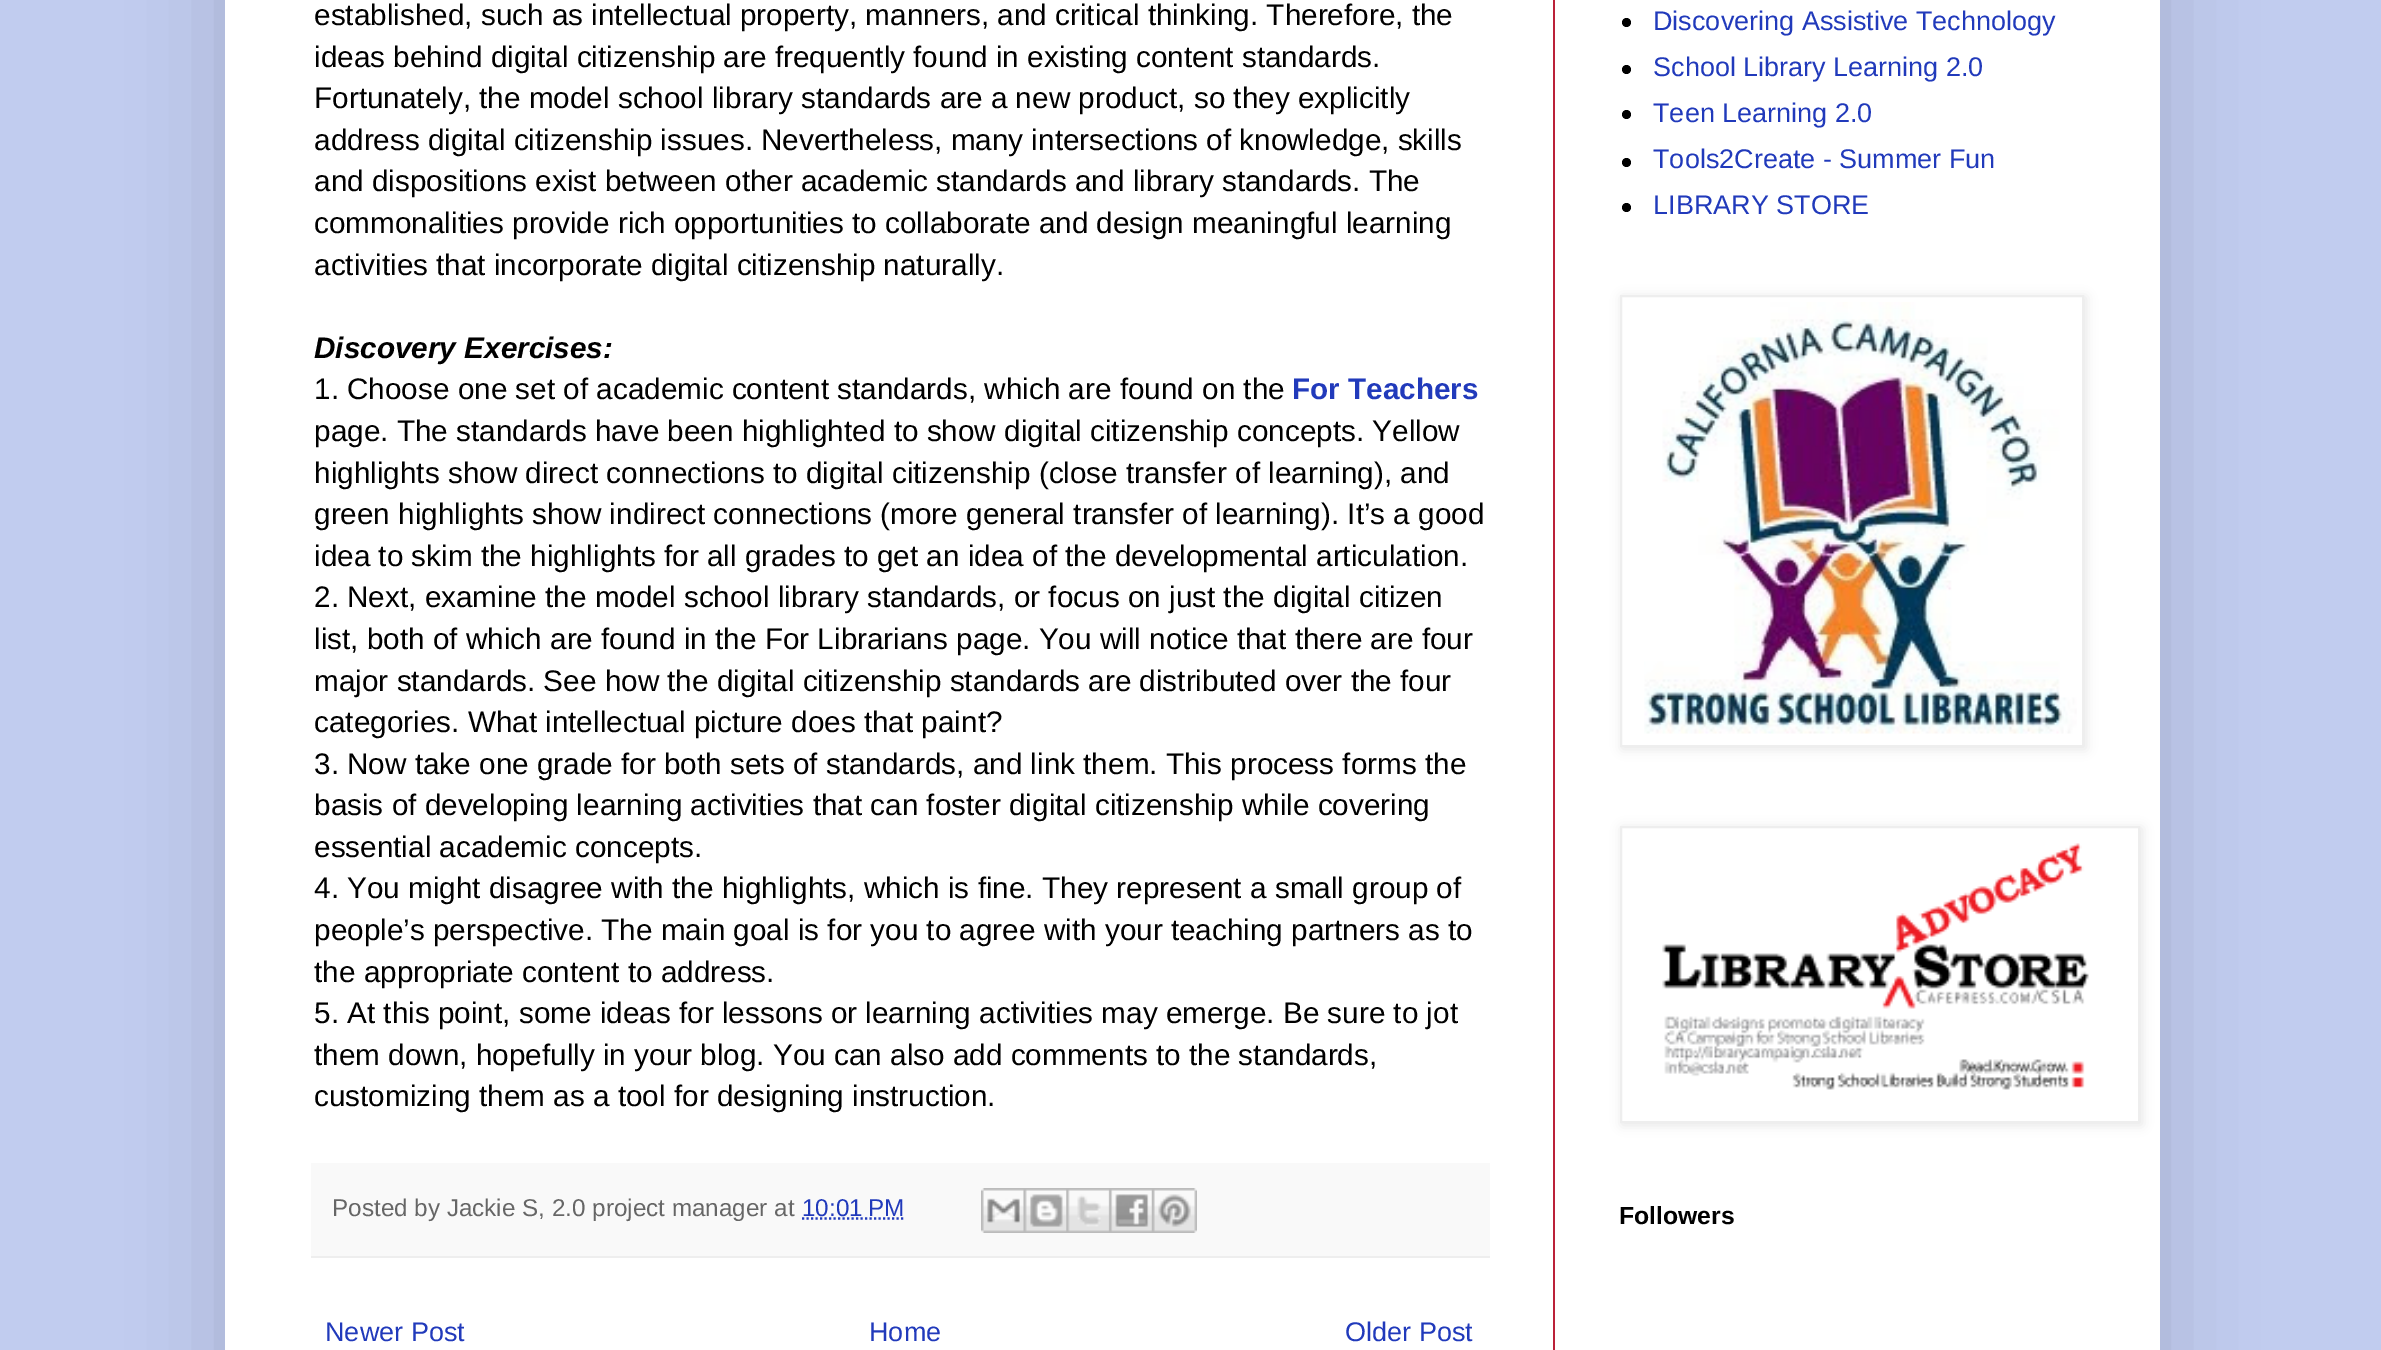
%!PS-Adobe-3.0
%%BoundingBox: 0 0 2381 1350
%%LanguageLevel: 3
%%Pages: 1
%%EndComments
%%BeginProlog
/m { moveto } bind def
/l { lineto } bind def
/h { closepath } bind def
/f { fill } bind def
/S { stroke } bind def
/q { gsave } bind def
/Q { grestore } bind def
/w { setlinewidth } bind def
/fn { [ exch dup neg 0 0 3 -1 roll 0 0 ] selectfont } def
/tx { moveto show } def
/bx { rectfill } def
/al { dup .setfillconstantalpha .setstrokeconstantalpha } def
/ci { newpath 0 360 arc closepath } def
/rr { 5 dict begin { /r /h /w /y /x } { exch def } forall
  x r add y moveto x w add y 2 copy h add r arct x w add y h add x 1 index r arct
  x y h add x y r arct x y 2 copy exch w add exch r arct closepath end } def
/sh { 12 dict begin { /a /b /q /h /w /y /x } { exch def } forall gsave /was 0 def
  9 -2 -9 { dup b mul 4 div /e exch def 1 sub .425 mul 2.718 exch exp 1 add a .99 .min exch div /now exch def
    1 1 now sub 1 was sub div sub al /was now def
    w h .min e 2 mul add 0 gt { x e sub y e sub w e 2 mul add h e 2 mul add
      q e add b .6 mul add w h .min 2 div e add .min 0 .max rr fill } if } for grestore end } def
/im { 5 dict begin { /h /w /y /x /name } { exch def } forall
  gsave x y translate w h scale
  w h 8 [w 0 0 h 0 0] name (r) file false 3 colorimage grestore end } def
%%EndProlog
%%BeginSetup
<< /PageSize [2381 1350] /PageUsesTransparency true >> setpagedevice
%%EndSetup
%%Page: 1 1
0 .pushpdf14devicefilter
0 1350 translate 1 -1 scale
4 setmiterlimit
0.757 0.8 0.937 setrgbcolor
0 0 2381 1350 bx
0 setgray
225 -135 1935 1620 0 45 0.15 sh
1 setgray
225 0 1935 1350 bx
0.733 0.129 0.224 setrgbcolor
1553 0 2 1350 bx
/LiberationSans-Regular 29.7 fn
0 setgray
(established, such as intellectual property, manners, and critical thinking. Therefore, the) 314 25 tx
(ideas behind digital citizenship are frequently found in existing content standards.) 314 67 tx
(Fortunately, the model school library standards are a new product, so they explicitly) 314 108 tx
314 150 m -0.1 0 32 (address digital citizenship issues. Nevertheless, many intersections of knowledge, skills) widthshow
(and dispositions exist between other academic standards and library standards. The) 314 191 tx
(commonalities provide rich opportunities to collaborate and design meaningful learning) 314 233 tx
(activities that incorporate digital citizenship naturally.) 314 275 tx
/LiberationSans-BoldItalic 29.7 fn
(Discovery Exercises:) 314 358 tx
/LiberationSans-Regular 29.7 fn
(1. Choose one set of academic content standards, which are found on the) 314 399 tx
/LiberationSans-Bold 29.7 fn
0.129 0.227 0.733 setrgbcolor
(For Teachers) 1292 399 tx
/LiberationSans-Regular 29.7 fn
0 setgray
(page. The standards have been highlighted to show digital citizenship concepts. Yellow) 314 441 tx
(highlights show direct connections to digital citizenship \(close transfer of learning\), and) 314 483 tx
(green highlights show indirect connections \(more general transfer of learning\). It’s a good) 314 524 tx
(idea to skim the highlights for all grades to get an idea of the developmental articulation.) 314 566 tx
(2. Next, examine the model school library standards, or focus on just the digital citizen) 314 607 tx
(list, both of which are found in the For Librarians page. You will notice that there are four) 314 649 tx
(major standards. See how the digital citizenship standards are distributed over the four) 314 691 tx
(categories. What intellectual picture does that paint?) 314 732 tx
(3. Now take one grade for both sets of standards, and link them. This process forms the) 314 774 tx
(basis of developing learning activities that can foster digital citizenship while covering) 314 815 tx
(essential academic concepts.) 314 857 tx
(4. You might disagree with the highlights, which is fine. They represent a small group of) 314 898 tx
(people’s perspective. The main goal is for you to agree with your teaching partners as to) 314 940 tx
(the appropriate content to address.) 314 982 tx
(5. At this point, some ideas for lessons or learning activities may emerge. Be sure to jot) 314 1023 tx
(them down, hopefully in your blog. You can also add comments to the standards,) 314 1065 tx
(customizing them as a tool for designing instruction.) 314 1106 tx
0.976 setgray
311 1163 1179 93 bx
0.933 setgray
311 1256 1179 2 bx
/LiberationSans-Regular 24.25 fn
0.4 setgray
(Posted by Jackie S, 2.0 project manager at) 332 1216 tx
0.129 0.227 0.733 setrgbcolor
(10:01 PM) 802 1216 tx
2.2 w
[2.25 2.25] 0 setdash
802 1218.5 m 904 1218.5 l S
(image0.raw) 981 1188 43 45 im
(image1.raw) 1023 1188 44 45 im
(image2.raw) 1066 1188 44 45 im
(image3.raw) 1109 1188 43 45 im
(image4.raw) 1152 1188 45 45 im
/LiberationSans-Regular 27 fn
(Newer Post) 325 1341 tx
(Home) 869 1341 tx
(Older Post) 1345 1341 tx
0 setgray
1626.5 22.5 4.5 ci f
0.129 0.227 0.733 setrgbcolor
(Discovering Assistive Technology) 1653 30 tx
0 setgray
1626.5 69.5 4.5 ci f
0.129 0.227 0.733 setrgbcolor
(School Library Learning 2.0) 1653 76 tx
0 setgray
1626.5 114.5 4.5 ci f
0.129 0.227 0.733 setrgbcolor
(Teen Learning 2.0) 1653 122 tx
0 setgray
1626.5 162.5 4.5 ci f
0.129 0.227 0.733 setrgbcolor
(Tools2Create - Summer Fun) 1653 168 tx
0 setgray
1626.5 207.5 4.5 ci f
0.129 0.227 0.733 setrgbcolor
(LIBRARY STORE) 1653 214 tx
0 setgray
1622 297 464 452 0 5.5 0.1 sh
1 setgray
1621 296 m 2083 296 l 2083 746 l 1621 746 l h q f Q
0.933 setgray
2 w
[] 0 setdash
S
(image5.raw) 1644 302 433 432 im
0 setgray
1622 828 520 297 0 5.5 0.1 sh
1 setgray
1621 827 m 2139 827 l 2139 1122 l 1621 1122 l h q f Q
0.933 setgray
S
(image6.raw) 1662 843 427 247 im
/LiberationSans-Bold 24.75 fn
0 setgray
(Followers) 1619 1224 tx
.poppdf14devicefilter showpage
%%EOF
